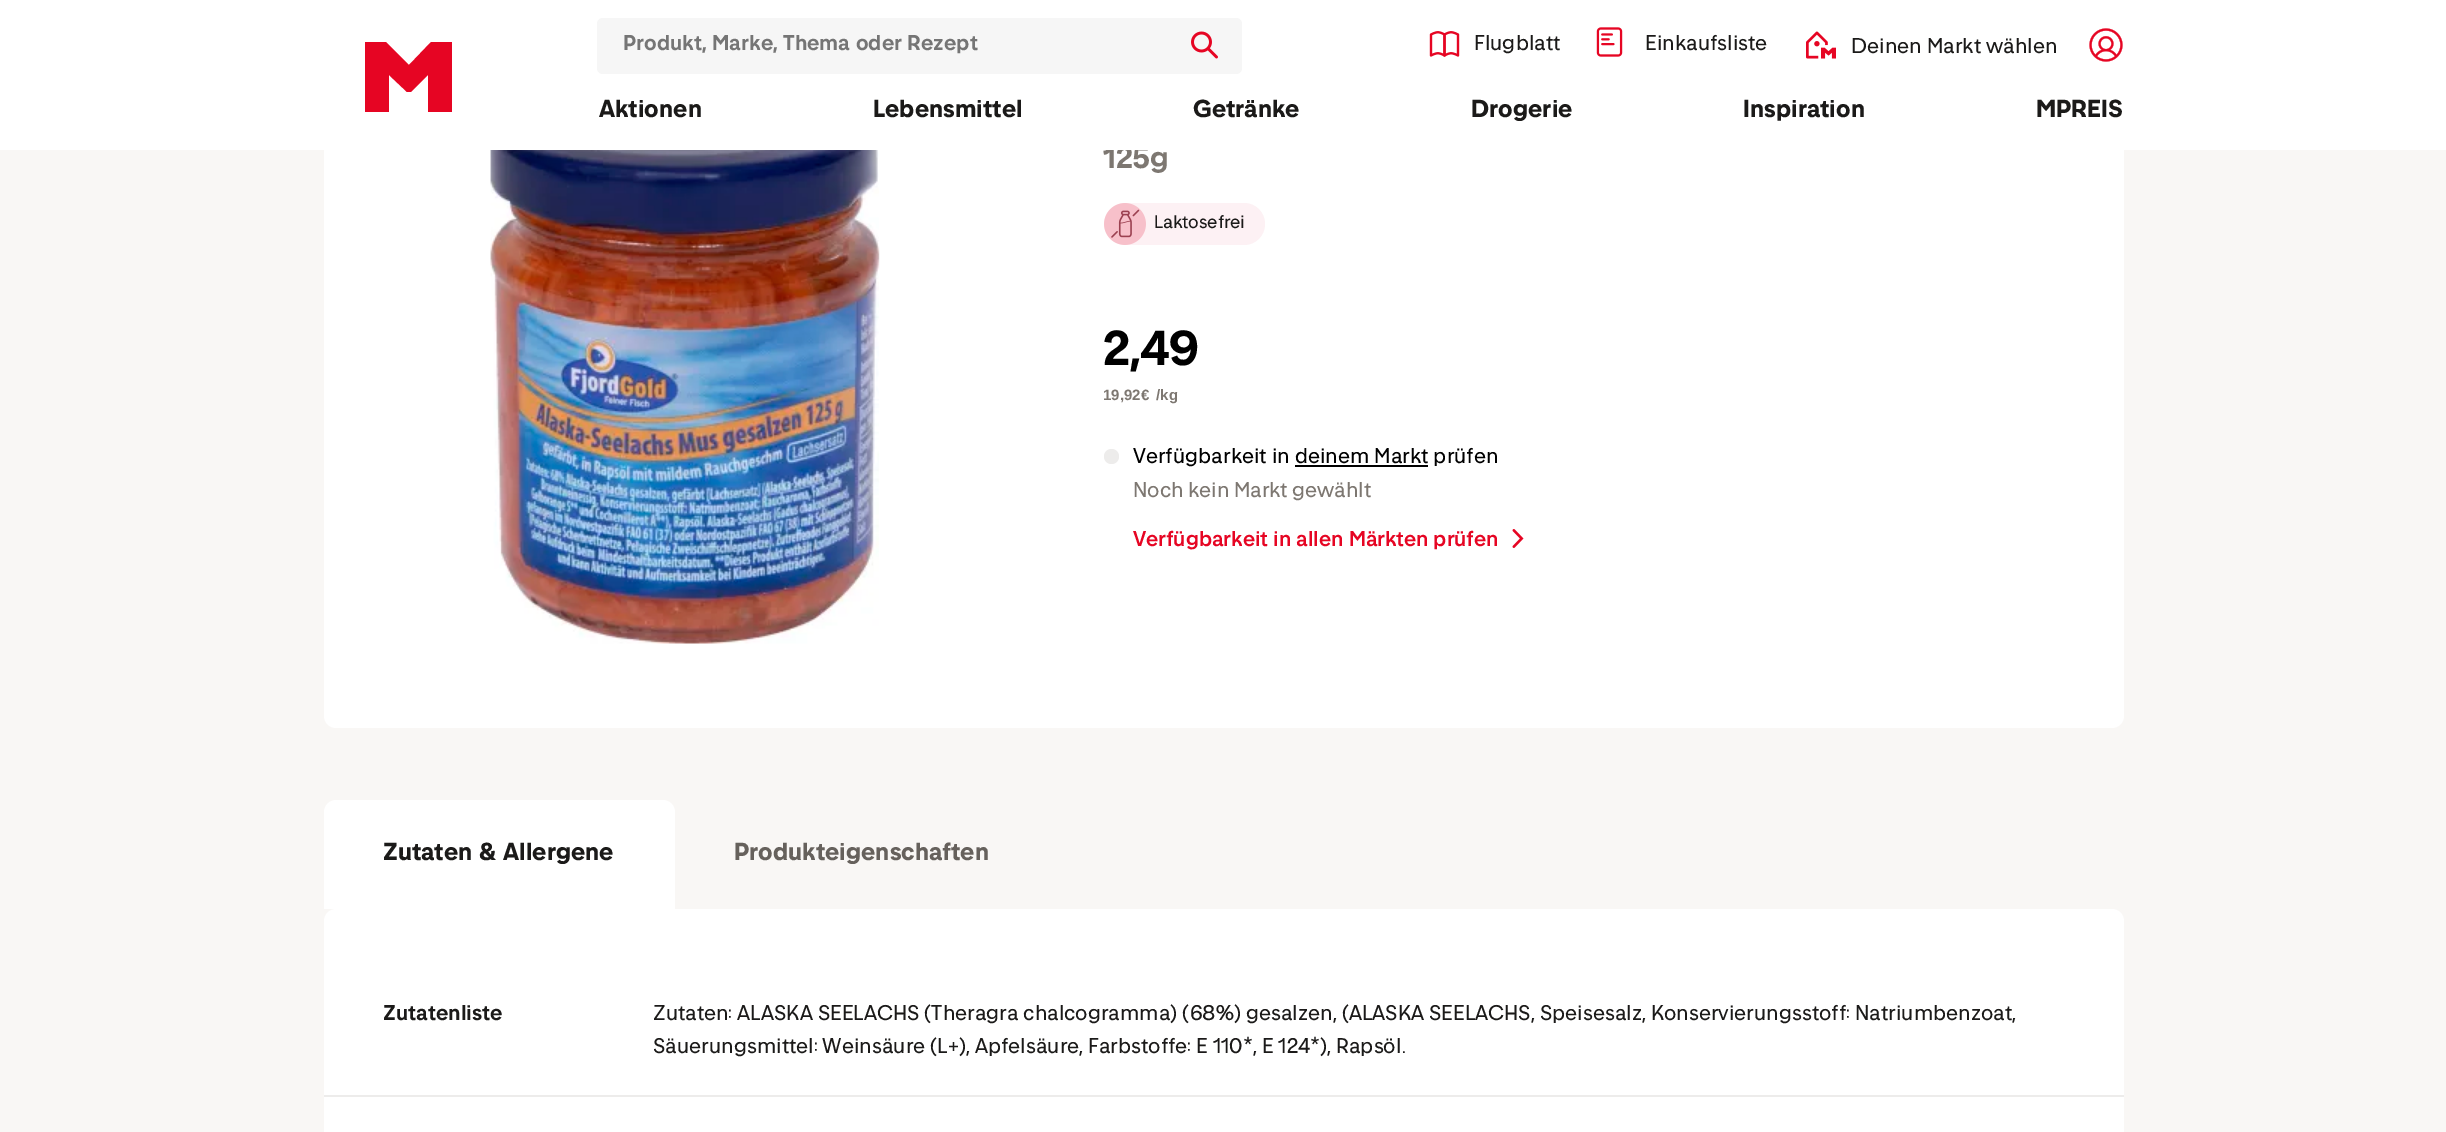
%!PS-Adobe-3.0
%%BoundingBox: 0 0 2446 1132
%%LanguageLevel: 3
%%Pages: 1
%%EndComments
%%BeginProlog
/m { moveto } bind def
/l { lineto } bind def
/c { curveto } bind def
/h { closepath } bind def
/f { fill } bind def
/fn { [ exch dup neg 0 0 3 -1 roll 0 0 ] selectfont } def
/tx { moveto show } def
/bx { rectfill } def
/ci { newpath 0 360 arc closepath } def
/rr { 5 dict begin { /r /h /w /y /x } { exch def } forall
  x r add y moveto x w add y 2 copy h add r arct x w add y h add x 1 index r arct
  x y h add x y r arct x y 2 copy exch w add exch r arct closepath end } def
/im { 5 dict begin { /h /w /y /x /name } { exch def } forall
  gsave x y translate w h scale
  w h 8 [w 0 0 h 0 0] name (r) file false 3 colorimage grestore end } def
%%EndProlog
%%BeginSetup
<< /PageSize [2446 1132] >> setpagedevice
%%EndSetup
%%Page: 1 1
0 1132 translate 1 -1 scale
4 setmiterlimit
0.976 0.969 0.961 setrgbcolor
0 0 2446 1132 bx
1 setgray
324 -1 1800 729 12 rr f
/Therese-SemiBold 30 fn
0.49 0.467 0.443 setrgbcolor
(125g) 1103 168 tx
1 setgray
0 0 2446 150 bx
0.902 0.02 0.137 setrgbcolor
365 112 m 389 112 l 389 75 l 407 92 l 411 92 l 428 75 l 428 112 l 452 112 l 452 42 l 431 42 l 409 65 l 386 42 l 365 42 l h f
0.965 setgray
597 18 645 56 6 rr f
/Therese-SemiBold 21 fn
0.459 setgray
623 50 m 0.11 0 (Produkt, Marke, Thema oder Rezept) ashow
(image0.raw) 1191 31 27 28 im
(image1.raw) 1429 31 31 26 im
/Therese-Light 21 fn
0.106 0.102 0.098 setrgbcolor
1474 50 m 0.11 0 (Flugblatt) ashow
(image2.raw) 1596 27 27 30 im
1645 50 m 0.11 0 (Einkaufsliste) ashow
(image3.raw) 1806 31 30 28 im
1851 53 m 0.11 0 (Deinen Markt wählen) ashow
(image4.raw) 2089 28 34 34 im
/Therese-Bold 24 fn
599 117 m 0.1 0 (Aktionen) ashow
873 117 m 0.1 0 (Lebensmittel) ashow
1193 117 m 0.1 0 (Getränke) ashow
1471 117 m 0.1 0 (Drogerie) ashow
1743 117 m 0.1 0 (Inspiration) ashow
2036 117 m 0.1 0 (MPREIS) ashow
(image5.raw) 490 150 390 494 im
0.992 0.945 0.957 setrgbcolor
1104 203 161 42 21 rr f
(image6.raw) 1104 203 42 42 im
/Therese-Light 18 fn
0.106 0.102 0.098 setrgbcolor
(Laktosefrei) 1154 228 tx
/Therese-SemiBold 48 fn
0 setgray
(2,49) 1103 365 tx
/LiberationSans-Bold 15 fn
0.49 0.467 0.443 setrgbcolor
1103 400 m 3 0 32 (19,92€ /kg) widthshow
0.929 0.925 0.922 setrgbcolor
1111.5 456.5 7.5 ci f
/Therese-Light 21 fn
0 setgray
1133 463 m 0.11 0 (Verfügbarkeit in deinem Markt prüfen) ashow
1295 465 133 2 bx
0.49 0.467 0.443 setrgbcolor
(Noch kein Markt gewählt) 1133 497 tx
/Therese-Medium 21 fn
0.902 0.02 0.137 setrgbcolor
(Verfügbarkeit in allen Märkten prüfen) 1133 546 tx
(image7.raw) 1512 529 12 19 im
1 setgray
336 800 m 663 800 l 669.5 800 675 805.5 675 812 c 675 909 l 324 909 l 324 812 l 324 805.5 329.5 800 336 800 c h f
/Therese-Bold 24 fn
0.106 0.102 0.098 setrgbcolor
383 860 m 0.1 0 (Zutaten & Allergene) ashow
0.4 0.38 0.361 setrgbcolor
734 860 m 0.1 0 (Produkteigenschaften) ashow
1 setgray
324 909 1800 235 12 rr f
/Therese-SemiBold 21 fn
0.106 0.102 0.098 setrgbcolor
383 1020 m 0.11 0 (Zutatenliste) ashow
/Therese-Light 21 fn
653 1020 m 0.11 0 (Zutaten: ALASKA SEELACHS \(Theragra chalcogramma\) \(68%\) gesalzen, \(ALASKA SEELACHS, Speisesalz, Konservierungsstoff: Natriumbenzoat,) ashow
653 1053 m 0.11 0 (Säuerungsmittel: Weinsäure \(L+\), Apfelsäure, Farbstoffe: E 110*, E 124*\), Rapsöl.) ashow
0.929 0.925 0.922 setrgbcolor
324 1095 1800 2 bx
showpage
%%EOF
